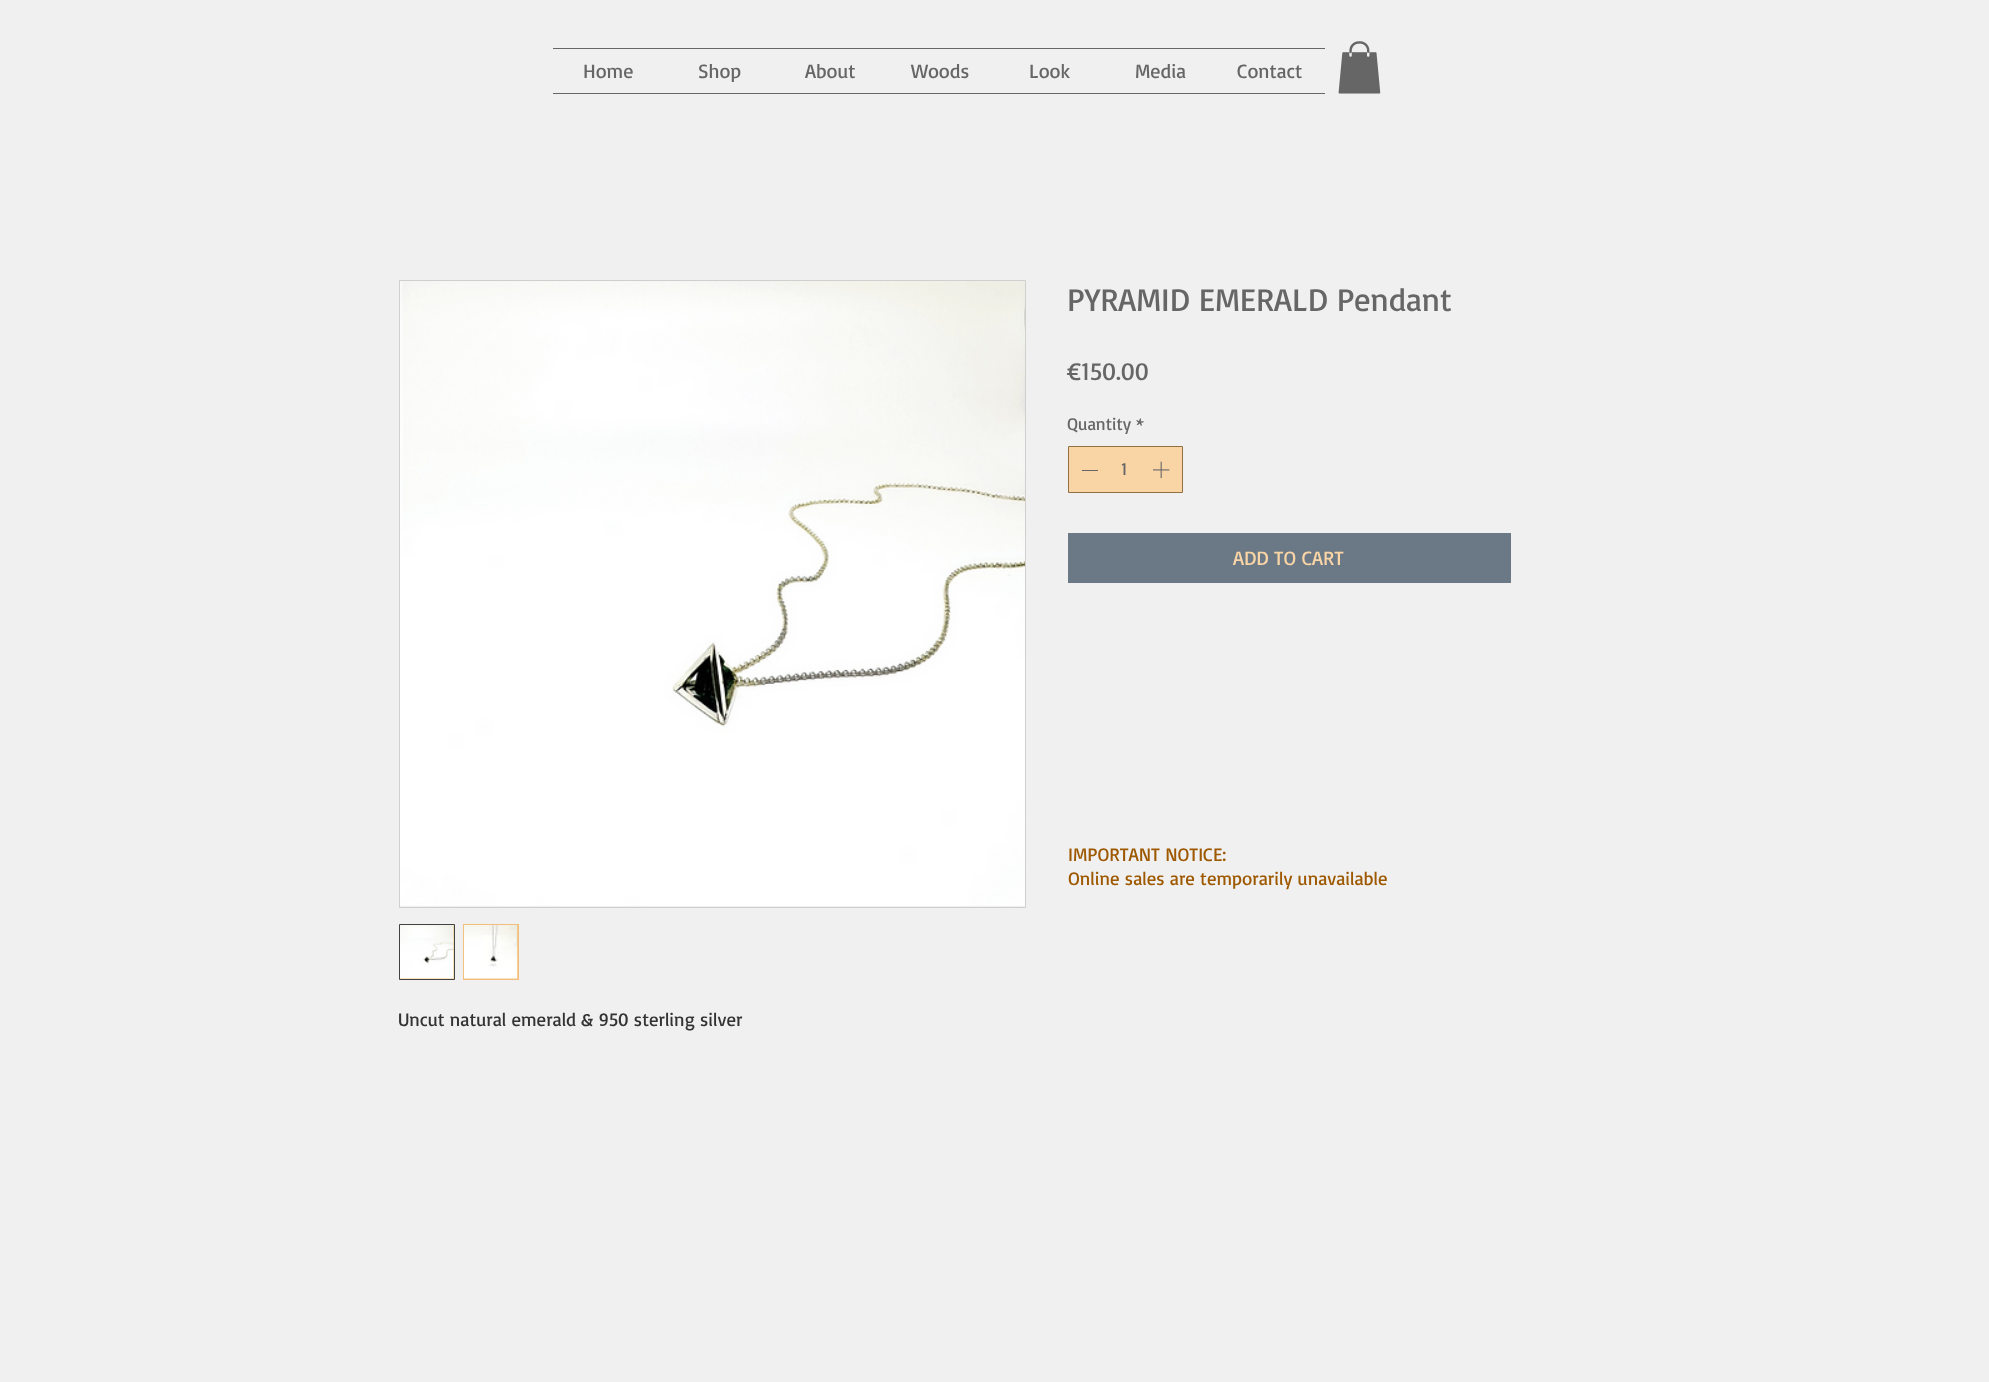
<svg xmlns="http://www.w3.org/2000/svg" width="1989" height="1382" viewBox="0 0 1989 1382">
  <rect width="100%" height="100%" fill="#f0f0f0"/>
  <path d="M553 48h772v1H553z" fill="#666"/>
  <path d="M553 93h772v1H553z" fill="#666"/>
  <image x="1338" y="41" width="43" height="53" href="img/1.png"/>
  <path d="M1068.5 446.5h114v46H1068.5z" fill="#f9d5a6" stroke="#937042"/>
  <path d="M1082 470h16v1H1082z" fill="#666"/>
  <image x="1153" y="461" width="17" height="18" href="img/2.png"/>
  <path d="M1068 533h443v50H1068z" fill="#6b7986"/>
  <path d="M399.5 280.5h626v627H399.5z" fill="none" stroke="#cfcfcf"/>
  <image x="400" y="281" width="625" height="625" href="img/3.png"/>
  <path d="M399.5 924.5h55v55H399.5z" fill="#f3be79" stroke="#424242"/>
  <image x="400" y="925" width="54" height="54" href="img/4.png"/>
  <path d="M463 924h56v56H463z" fill="#f3be79"/>
  <image x="463" y="925" width="55" height="54" href="img/5.png"/>
  <g font-family="Basic" font-size="20" fill="#666">
    <text x="583" y="78">Home</text>
    <text x="698" y="78">Shop</text>
    <text x="805" y="78">About</text>
    <text x="911" y="78">Woods</text>
    <text x="1029" y="78">Look</text>
    <text x="1135" y="78">Media</text>
    <text x="1237" y="78">Contact</text>
  </g>
  <text x="1067" y="311" font-family="Basic" font-size="32.5" fill="#666">PYRAMID EMERALD Pendant</text>
  <text x="1067" y="380" font-family="Basic" font-size="25" fill="#666">€150.00</text>
  <g font-family="Basic" font-size="17.5" fill="#666">
    <text x="1067" y="430">Quantity *</text>
    <text x="1121" y="475">1</text>
  </g>
  <text x="1233" y="565" font-family="Basic" font-size="20" fill="#f9d5a6">ADD TO CART</text>
  <text x="398" y="1026" font-family="Basic" font-size="18.75" fill="#333">Uncut natural emerald &amp; 950 sterling silver</text>
  <g font-family="Basic" font-size="18.75" fill="#9e5900">
    <text x="1068" y="861">IMPORTANT NOTICE:</text>
    <text x="1068" y="885">Online sales are temporarily unavailable</text>
  </g>
</svg>
